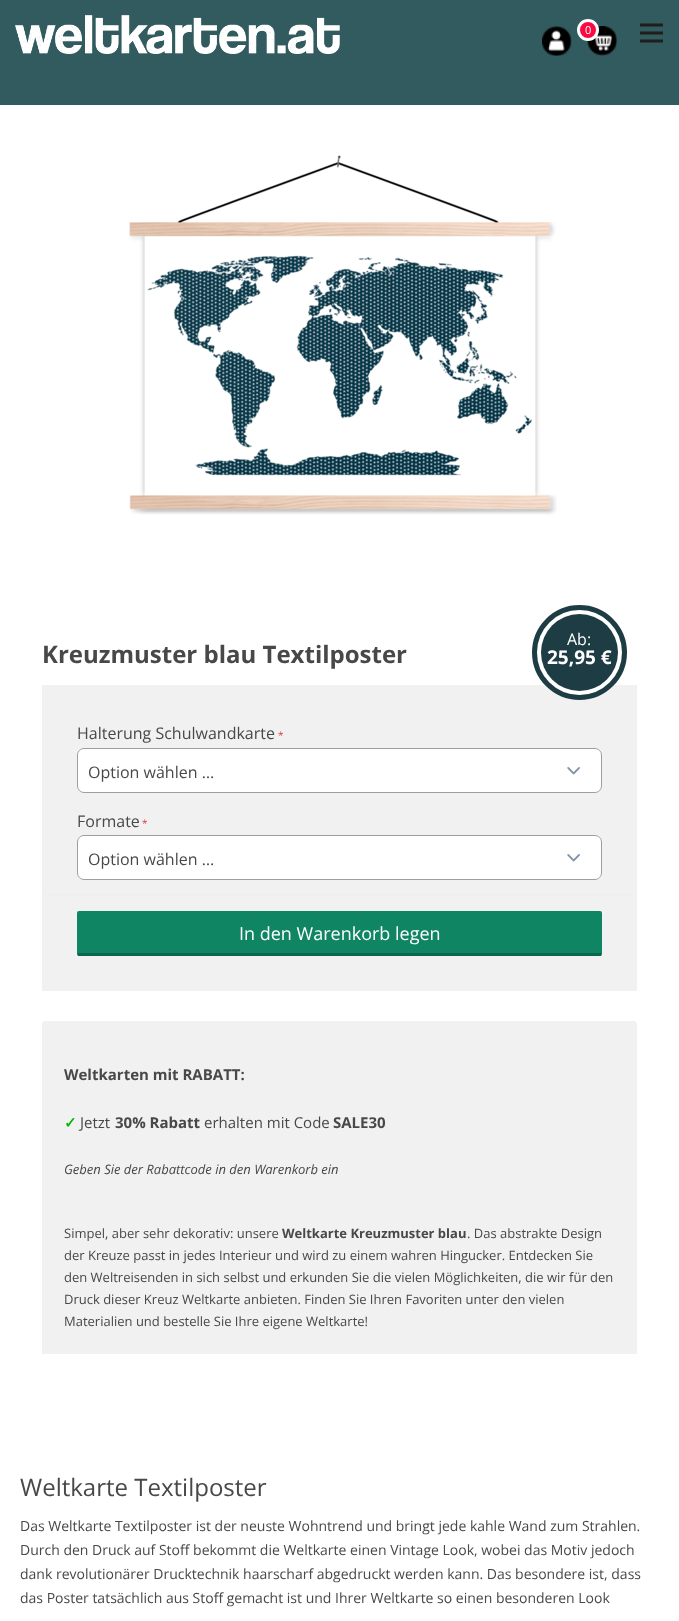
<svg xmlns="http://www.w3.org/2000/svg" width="679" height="1621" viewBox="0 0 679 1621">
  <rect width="100%" height="100%" fill="#fff"/>
  <path d="M0 0h679v105H0z" fill="#325b5f"/>
  <image x="15" y="15" width="325" height="39" href="img/1.png"/>
  <image x="542" y="26" width="30" height="30" href="img/2.png"/>
  <image x="587" y="26" width="30" height="30" href="img/3.png"/>
  <circle cx="588" cy="30" r="9.5" fill="#f80a42" stroke="#fff" stroke-width="3"/>
  <image x="640" y="23" width="23" height="20" href="img/4.png"/>
  <image x="129" y="155" width="428" height="360" href="img/5.png"/>
  <path d="M42 685h595v210H42z" fill="#f1f1f1"/>
  <circle cx="579.5" cy="652.5" r="45" fill="#fff" stroke="#1d3c43" stroke-width="5"/>
  <circle cx="579.5" cy="652.5" r="38.5" fill="#1d3c43"/>
  <path d="M42 895h595v1H42z" fill="#efefef"/>
  <rect x="77" y="748" width="525" height="45" rx="7" fill="#fff"/>
  <image x="567" y="767" width="13" height="8" href="img/6.png"/>
  <rect x="77.5" y="748.5" width="524" height="44" rx="6.5" fill="none" stroke="#9e9e9e"/>
  <rect x="77" y="835" width="525" height="45" rx="7" fill="#fff"/>
  <image x="567" y="854" width="13" height="8" href="img/6.png"/>
  <rect x="77.5" y="835.5" width="524" height="44" rx="6.5" fill="none" stroke="#9e9e9e"/>
  <path d="M42 896h595v95H42z" fill="#f1f1f1"/>
  <rect x="77" y="911" width="525" height="45" rx="2" fill="#0f8564"/>
  <path d="M78 953h523v3H78z" fill="#08674d"/>
  <path d="M45 1021H634C635.5 1021 637 1022.5 637 1024V1356H42V1024C42 1022.5 43.5 1021 45 1021Z" fill="#f1f1f1"/>
  <path d="M42 1354h595v2H42z" fill="#fff"/>
  <text x="585" y="34" font-family="Open Sans" font-size="11" fill="#fff">0</text>
  <text x="567" y="645" font-family="Open Sans" font-size="16" fill="#fff">Ab:</text>
  <text x="547" y="664" font-family="Open Sans" font-size="19" font-weight="bold" fill="#fff">25,95 €</text>
  <text x="77" y="739" font-family="Open Sans" font-size="16" fill="#484848">Halterung Schulwandkarte</text>
  <text x="278" y="739" font-family="Open Sans" font-size="10" fill="#de3737">*</text>
  <g font-family="Open Sans" font-size="16" fill="#484848">
    <text x="88" y="778">Option wählen …</text>
    <text x="77" y="827">Formate</text>
  </g>
  <text x="142" y="827" font-family="Open Sans" font-size="10" fill="#de3737">*</text>
  <text x="88" y="865" font-family="Open Sans" font-size="16" fill="#484848">Option wählen …</text>
  <text x="239" y="940" font-family="Open Sans" font-size="18" fill="#fff">In den Warenkorb legen</text>
  <text x="42" y="663" font-family="Open Sans" font-size="24" font-weight="bold" fill="#484848">Kreuzmuster blau Textilposter</text>
  <text x="64" y="1080" font-family="Open Sans" font-size="15" font-weight="bold" fill="#484848">Weltkarten mit RABATT:</text>
  <text x="64" y="1128" font-family="DejaVu Sans" font-size="15" font-weight="bold" fill="#00b900">✓</text>
  <text x="80" y="1128" font-family="Open Sans" font-size="15" fill="#484848">Jetzt</text>
  <text x="115" y="1128" font-family="Open Sans" font-size="15" font-weight="bold" fill="#484848">30% Rabatt</text>
  <text x="204" y="1128" font-family="Open Sans" font-size="15" fill="#484848">erhalten mit Code</text>
  <text x="333" y="1128" font-family="Open Sans" font-size="15" font-weight="bold" fill="#484848">SALE30</text>
  <text x="64" y="1174" font-family="Open Sans" font-size="13" font-style="italic" fill="#484848">Geben Sie der Rabattcode in den Warenkorb ein</text>
  <text x="64" y="1238" font-family="Open Sans" font-size="13" fill="#484848">Simpel, aber sehr dekorativ: unsere</text>
  <text x="282" y="1238" font-family="Open Sans" font-size="13" font-weight="bold" fill="#484848">Weltkarte Kreuzmuster blau</text>
  <g font-family="Open Sans" font-size="13" fill="#484848">
    <text x="467" y="1238">. Das abstrakte Design</text>
    <text x="64" y="1260">der Kreuze passt in jedes Interieur und wird zu einem wahren Hingucker. Entdecken Sie</text>
    <text x="64" y="1282">den Weltreisenden in sich selbst und erkunden Sie die vielen Möglichkeiten, die wir für den</text>
    <text x="64" y="1304">Druck dieser Kreuz Weltkarte anbieten. Finden Sie Ihren Favoriten unter den vielen</text>
    <text x="64" y="1326">Materialien und bestelle Sie Ihre eigene Weltkarte!</text>
  </g>
  <text x="20" y="1496" font-family="Open Sans" font-size="24" fill="#484848">Weltkarte Textilposter</text>
  <g font-family="Open Sans" font-size="14" fill="#484848">
    <text x="20" y="1531">Das Weltkarte Textilposter ist der neuste Wohntrend und bringt jede kahle Wand zum Strahlen.</text>
    <text x="20" y="1555">Durch den Druck auf Stoff bekommt die Weltkarte einen Vintage Look, wobei das Motiv jedoch</text>
    <text x="20" y="1579">dank revolutionärer Drucktechnik haarscharf abgedruckt werden kann. Das besondere ist, dass</text>
    <text x="20" y="1603">das Poster tatsächlich aus Stoff gemacht ist und Ihrer Weltkarte so einen besonderen Look</text>
  </g>
</svg>
